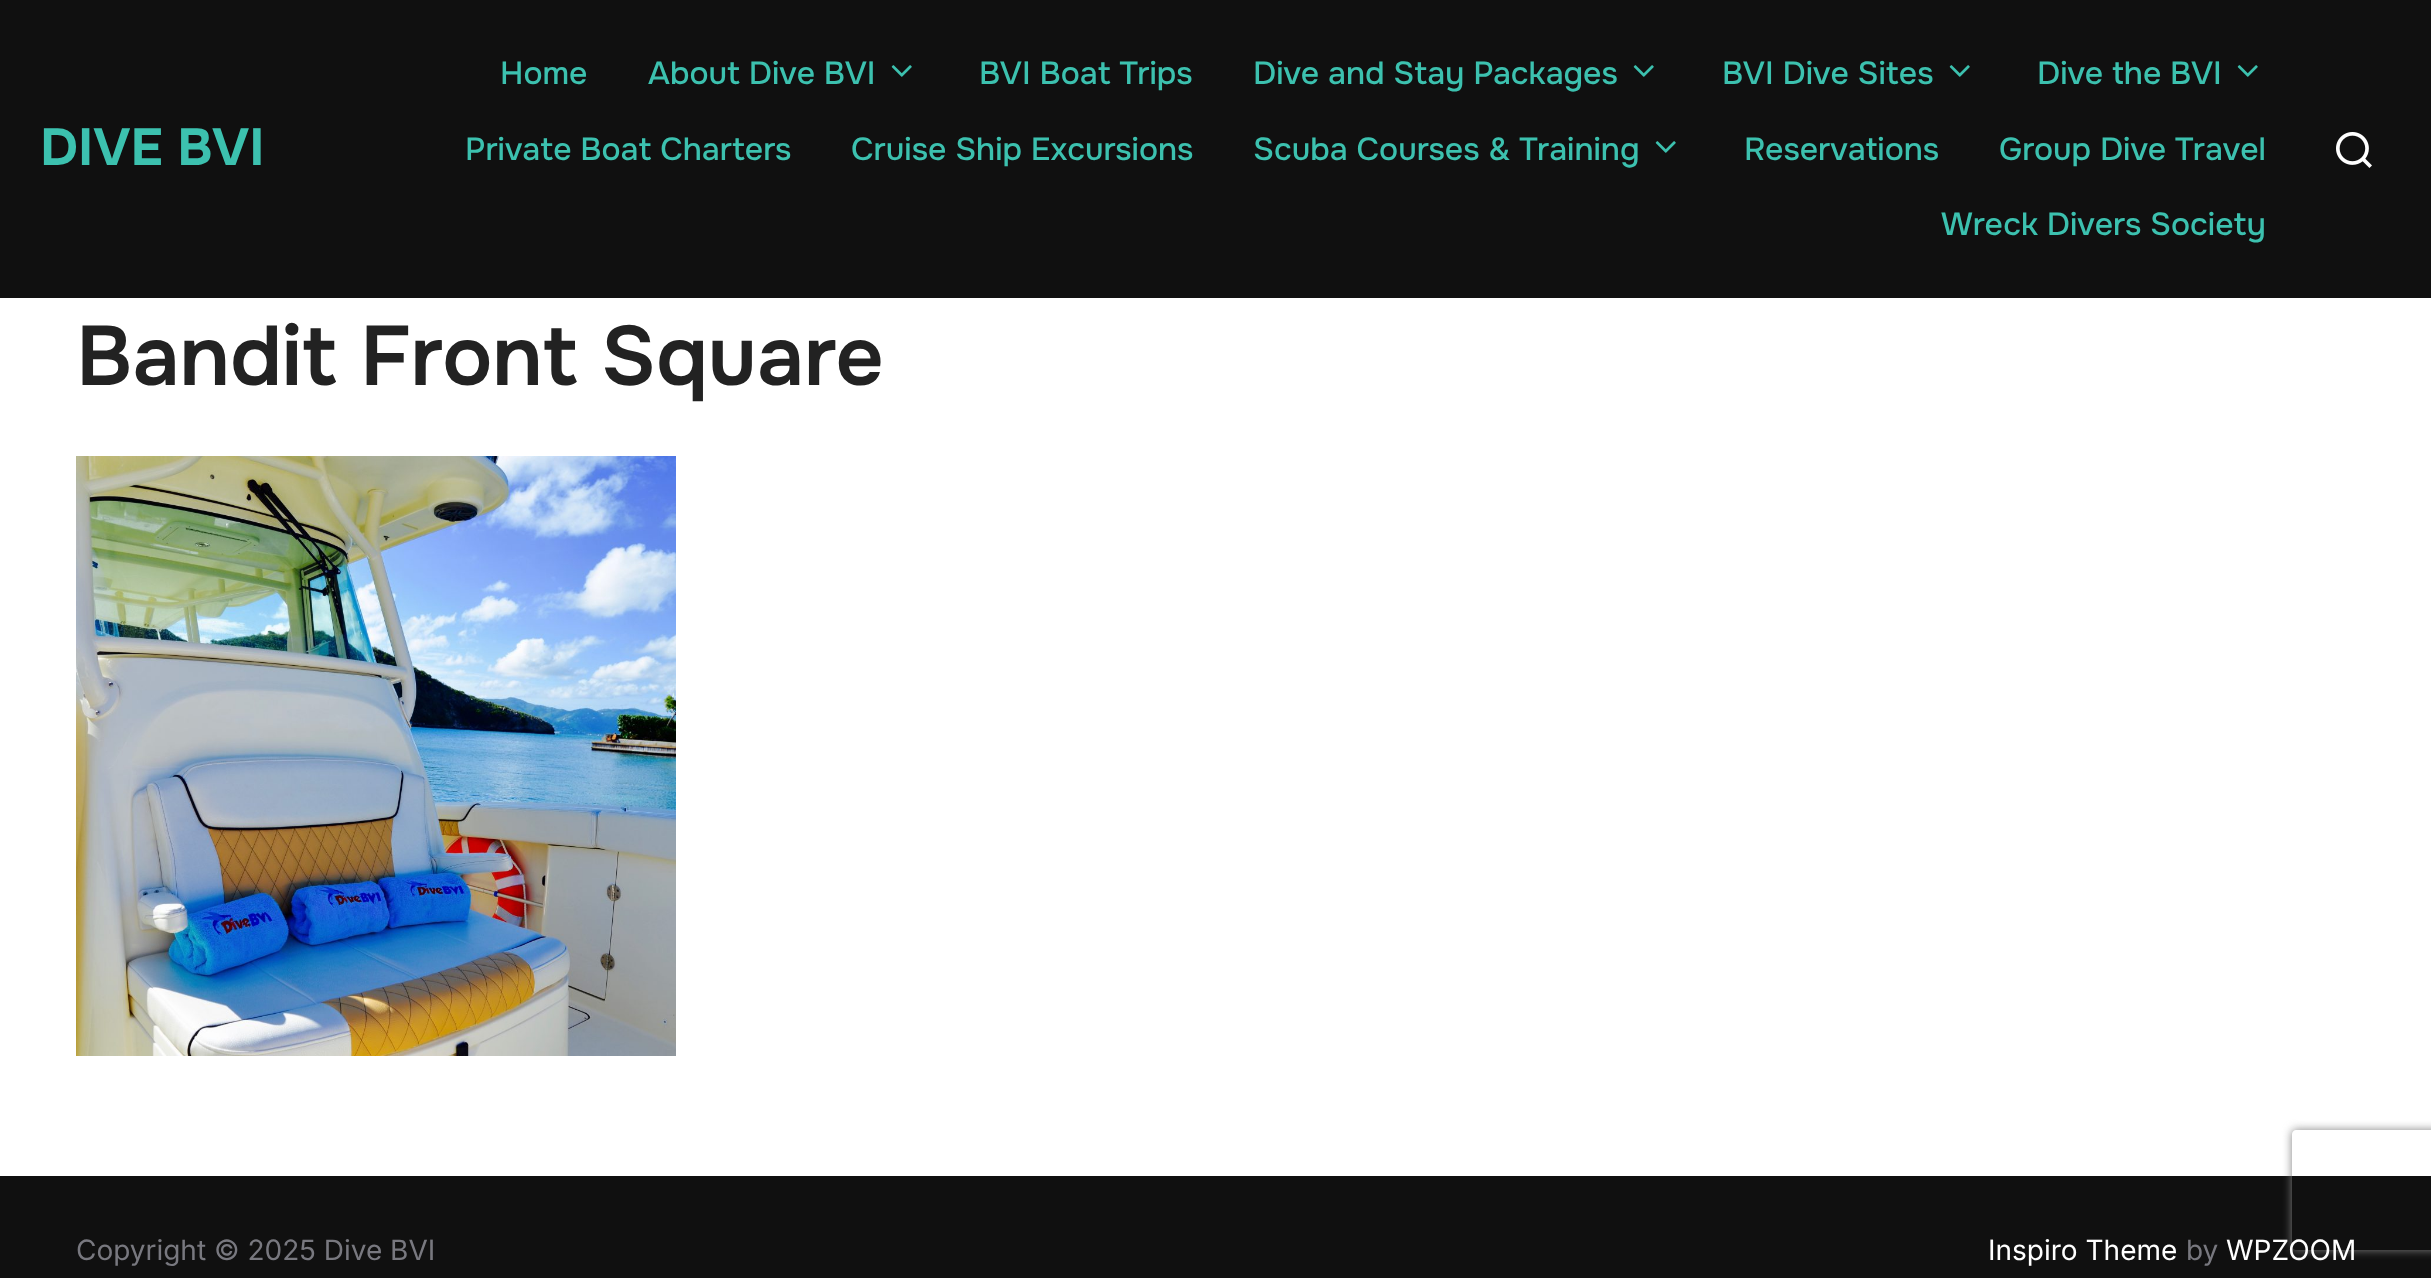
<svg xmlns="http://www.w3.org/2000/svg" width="2431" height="1278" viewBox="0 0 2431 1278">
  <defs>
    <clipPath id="clip1"><path d="M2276 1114H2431V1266H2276ZM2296 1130H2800C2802 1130 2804 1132 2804 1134V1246C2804 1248 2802 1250 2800 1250H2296C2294 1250 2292 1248 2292 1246V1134C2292 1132 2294 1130 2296 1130Z" clip-rule="evenodd"/></clipPath>
  </defs>
  <rect width="100%" height="100%" fill="#fff"/>
  <path d="M0 0h2431v298H0z" fill="#101010"/>
  <image x="891" y="65" width="21" height="12" href="img/1.png"/>
  <image x="1633" y="65" width="21" height="12" href="img/1.png"/>
  <image x="1949" y="65" width="21" height="12" href="img/1.png"/>
  <image x="2237" y="65" width="21" height="12" href="img/1.png"/>
  <image x="1655" y="141" width="21" height="12" href="img/1.png"/>
  <image x="2336" y="132" width="36" height="36" href="img/2.png"/>
  <image x="76" y="456" width="600" height="600" href="img/3.png"/>
  <path d="M0 1176h2431v102H0z" fill="#101010"/>
  <g clip-path="url(#clip1)">
    <rect x="2292" y="1130" width="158" height="120" rx="4" fill="#808080" filter="blur(5px)"/>
  </g>
  <text x="40" y="165" font-family="Onest" font-size="52" font-weight="bold" fill="#3cc1af">DIVE BVI</text>
  <g font-family="Onest" font-size="32" font-weight="500" fill="#3cc1af">
    <text x="500" y="84">Home</text>
    <text x="648" y="84">About Dive BVI</text>
    <text x="979" y="84">BVI Boat Trips</text>
    <text x="1253" y="84">Dive and Stay Packages</text>
    <text x="1722" y="84">BVI Dive Sites</text>
    <text x="2037" y="84">Dive the BVI</text>
    <text x="465" y="160">Private Boat Charters</text>
    <text x="851" y="160">Cruise Ship Excursions</text>
    <text x="1253" y="160">Scuba Courses &amp; Training</text>
    <text x="1744" y="160">Reservations</text>
    <text x="1999" y="160">Group Dive Travel</text>
    <text x="1941" y="235">Wreck Divers Society</text>
  </g>
  <text x="76" y="385" font-family="Onest" font-size="84" font-weight="600" fill="#222">Bandit Front Square</text>
  <text x="76" y="1260" font-family="Inter" font-size="28" fill="#78787f">Copyright © 2025 Dive BVI</text>
  <text x="1988" y="1260" font-family="Inter" font-size="28" fill="#fff">Inspiro Theme</text>
  <text x="2186" y="1260" font-family="Inter" font-size="28" fill="#78787f">by</text>
  <text x="2226" y="1260" font-family="Inter" font-size="28" fill="#fff">WPZOOM</text>
</svg>
